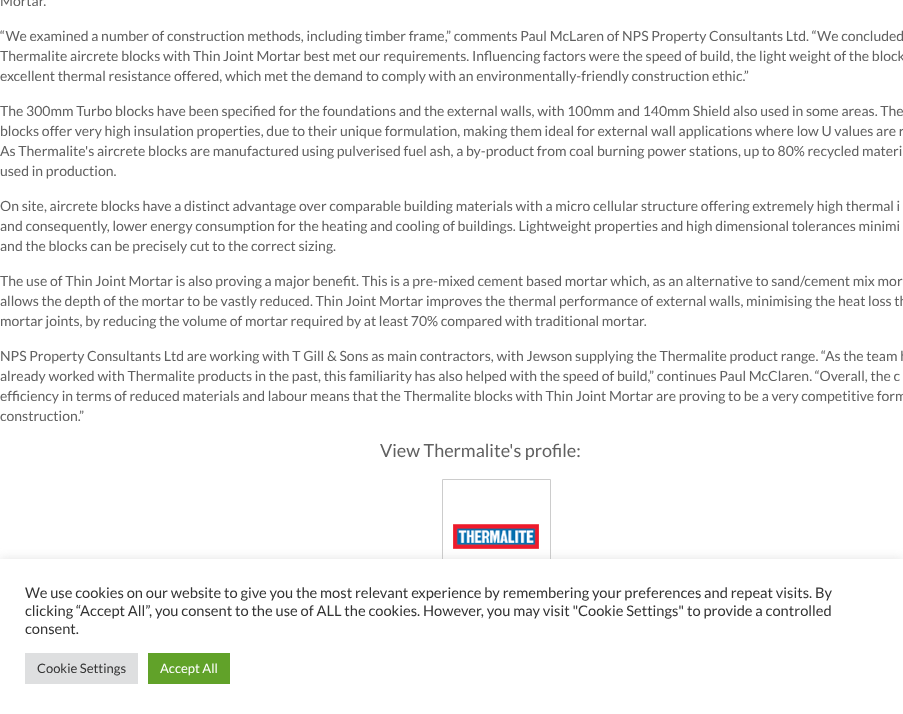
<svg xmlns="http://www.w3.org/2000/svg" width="903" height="714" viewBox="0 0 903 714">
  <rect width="100%" height="100%" fill="#fff"/>
  <path d="M442.5 479.5h108v111H442.5z" fill="none" stroke="#ccc"/>
  <image x="453" y="524" width="86" height="25" href="img/1.png"/>
  <path d="M0 558h903v155H0z" fill="#acabab4d" filter="blur(5px)"/>
  <path d="M0 559h903v155H0z" fill="#fff"/>
  <path d="M25 653h113v31H25z" fill="#dedfe0"/>
  <path d="M148 653h82v31H148z" fill="#61a229"/>
  <g font-family="Lato" font-size="14" fill="#606060">
    <text x="0" y="6">Mortar.</text>
    <text x="0" y="41">“We examined a number of construction methods, including timber frame,” comments Paul McLaren of NPS Property Consultants Ltd. “We concluded</text>
    <text x="0" y="61">Thermalite aircrete blocks with Thin Joint Mortar best met our requirements. Influencing factors were the speed of build, the light weight of the block</text>
    <text x="0" y="81">excellent thermal resistance offered, which met the demand to comply with an environmentally-friendly construction ethic.”</text>
    <text x="0" y="116">The 300mm Turbo blocks have been specified for the foundations and the external walls, with 100mm and 140mm Shield also used in some areas. The</text>
    <text x="0" y="136">blocks offer very high insulation properties, due to their unique formulation, making them ideal for external wall applications where low U values are r</text>
    <text x="0" y="156">As Thermalite's aircrete blocks are manufactured using pulverised fuel ash, a by-product from coal burning power stations, up to 80% recycled materi</text>
    <text x="0" y="176">used in production.</text>
    <text x="0" y="211">On site, aircrete blocks have a distinct advantage over comparable building materials with a micro cellular structure offering extremely high thermal i</text>
    <text x="0" y="231">and consequently, lower energy consumption for the heating and cooling of buildings. Lightweight properties and high dimensional tolerances minimi</text>
    <text x="0" y="251">and the blocks can be precisely cut to the correct sizing.</text>
    <text x="0" y="286">The use of Thin Joint Mortar is also proving a major benefit. This is a pre-mixed cement based mortar which, as an alternative to sand/cement mix mor</text>
    <text x="0" y="306">allows the depth of the mortar to be vastly reduced. Thin Joint Mortar improves the thermal performance of external walls, minimising the heat loss th</text>
    <text x="0" y="326">mortar joints, by reducing the volume of mortar required by at least 70% compared with traditional mortar.</text>
    <text x="0" y="361">NPS Property Consultants Ltd are working with T Gill &amp; Sons as main contractors, with Jewson supplying the Thermalite product range. “As the team h</text>
    <text x="0" y="381">already worked with Thermalite products in the past, this familiarity has also helped with the speed of build,” continues Paul McClaren. “Overall, the c</text>
    <text x="0" y="401">efficiency in terms of reduced materials and labour means that the Thermalite blocks with Thin Joint Mortar are proving to be a very competitive form</text>
    <text x="0" y="421">construction.”</text>
  </g>
  <text x="380" y="457" font-family="Lato" font-size="18" fill="#606060">View Thermalite's profile:</text>
  <g font-family="Lato" font-size="14.67" fill="#333">
    <text x="25" y="598">We use cookies on our website to give you the most relevant experience by remembering your preferences and repeat visits. By</text>
    <text x="25" y="616">clicking “Accept All”, you consent to the use of ALL the cookies. However, you may visit "Cookie Settings" to provide a controlled</text>
    <text x="25" y="634">consent.</text>
  </g>
  <text x="37" y="673" font-family="Lato" font-size="13" fill="#333">Cookie Settings</text>
  <text x="160" y="673" font-family="Lato" font-size="13" fill="#fff">Accept All</text>
</svg>
